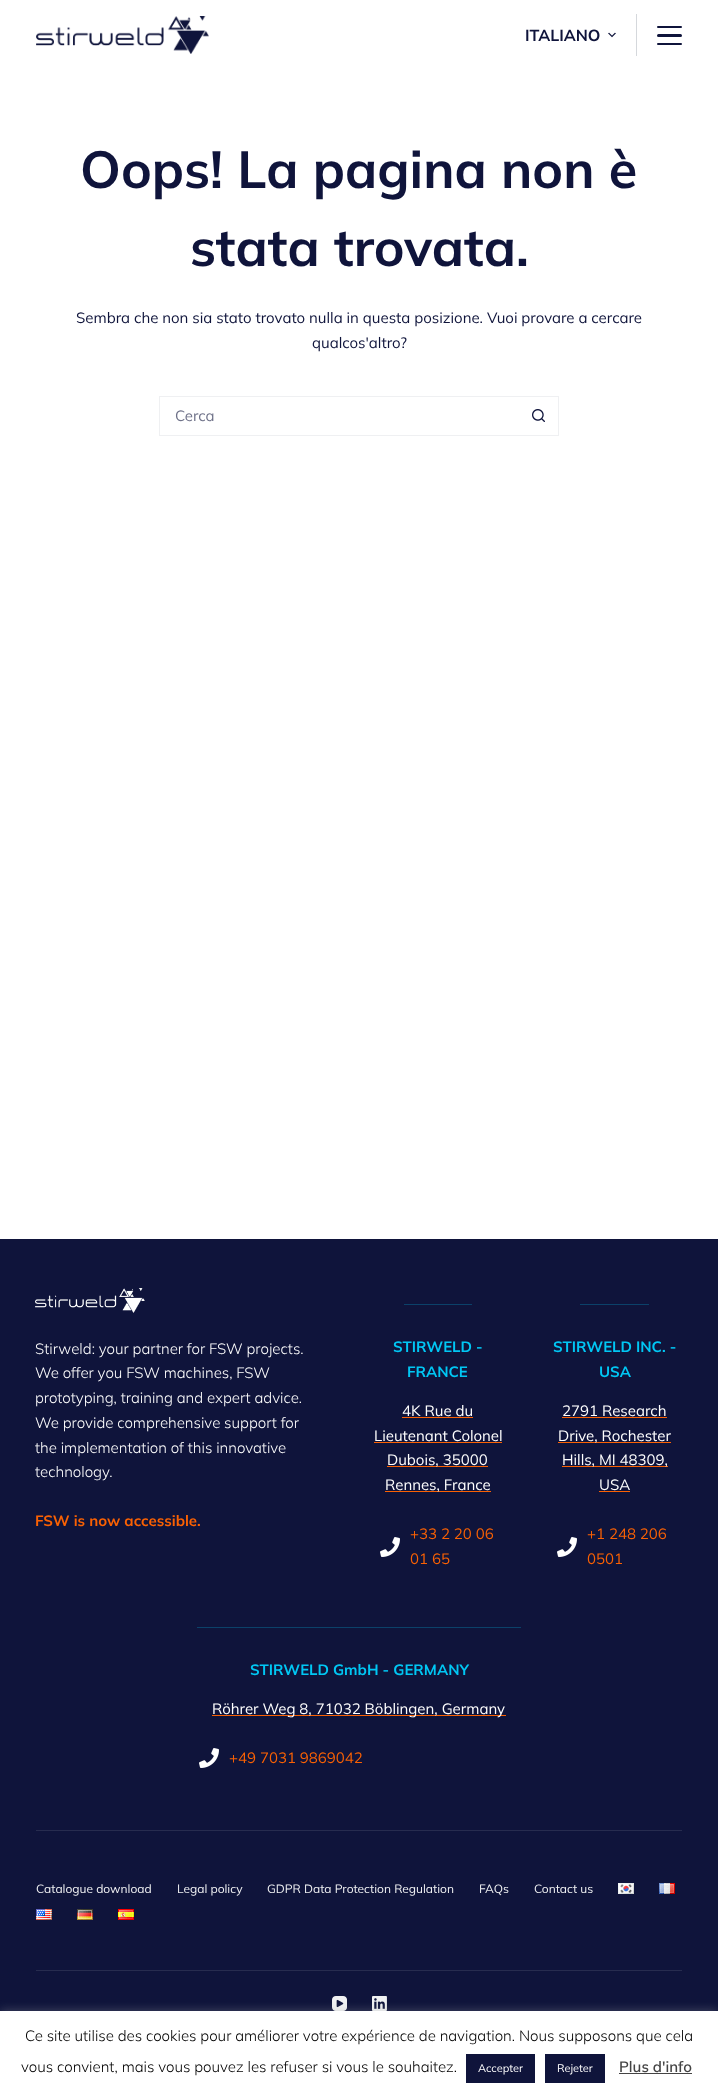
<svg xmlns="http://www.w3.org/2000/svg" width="718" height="2100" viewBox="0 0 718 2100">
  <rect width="100%" height="100%" fill="#fff"/>
  <image x="36" y="16" width="173" height="38" href="img/1.png"/>
  <image x="608" y="32" width="8" height="6" href="img/2.png"/>
  <path d="M636 14h1v42H636z" fill="#d5d8dc"/>
  <rect x="657" y="26" width="25" height="2" rx="1" fill="#0f143b"/>
  <rect x="657" y="34" width="25" height="3" rx="1.5" fill="#0f143b"/>
  <rect x="657" y="43" width="25" height="2" rx="1" fill="#0f143b"/>
  <path d="M159 396h400v1H159z" fill="#eff0f2"/>
  <path d="M159 435h360v1H159z" fill="#eff0f2"/>
  <path d="M159 396h1v40H159z" fill="#eff0f2"/>
  <path d="M558 396h1v40H558z" fill="#eff0f2"/>
  <path d="M519 435h40v1H519z" fill="#eff0f2"/>
  <image x="532" y="409" width="13" height="13" href="img/3.png"/>
  <path d="M0 1239h718v772H0z" fill="#0f143b"/>
  <image x="35" y="1288" width="110" height="25" href="img/4.png"/>
  <path d="M404 1304h68v1H404z" fill="#0b4169"/>
  <path d="M402 1417h71v1H402z" fill="#fa6103"/>
  <path d="M374 1442h128v1H374z" fill="#fa6103"/>
  <path d="M387 1466h101v1H387z" fill="#fa6103"/>
  <path d="M385 1491h106v1H385z" fill="#fa6103"/>
  <image x="380" y="1537" width="20" height="20" href="img/5.png"/>
  <path d="M580 1304h69v1H580z" fill="#0b4169"/>
  <path d="M562 1417h105v1H562z" fill="#fa6103"/>
  <path d="M558 1442h113v1H558z" fill="#fa6103"/>
  <path d="M562 1466h106v1H562z" fill="#fa6103"/>
  <path d="M599 1491h31v1H599z" fill="#fa6103"/>
  <image x="557" y="1537" width="20" height="20" href="img/5.png"/>
  <path d="M197 1627h324v1H197z" fill="#0b4169"/>
  <path d="M212 1715h294v1H212z" fill="#fa6103"/>
  <image x="199" y="1748" width="20" height="20" href="img/5.png"/>
  <path d="M36 1830h646v1H36z" fill="#272c4f"/>
  <image x="618" y="1883" width="16" height="11" href="img/6.png"/>
  <image x="659" y="1883" width="16" height="11" href="img/7.png"/>
  <image x="36" y="1909" width="16" height="11" href="img/8.png"/>
  <image x="77" y="1909" width="16" height="11" href="img/9.png"/>
  <image x="118" y="1909" width="16" height="11" href="img/10.png"/>
  <path d="M36 1970h646v1H36z" fill="#272c4f"/>
  <image x="332" y="1996" width="15" height="15" href="img/11.png"/>
  <image x="372" y="1996" width="15" height="15" href="img/12.png"/>
  <path d="M0 2010h718v89H0z" fill="#acabab4d" filter="blur(5px)"/>
  <path d="M0 2011h718v89H0z" fill="#fff"/>
  <path d="M466 2054h69v29H466z" fill="#0f143b"/>
  <path d="M545 2054h60v29H545z" fill="#0f143b"/>
  <path d="M619 2073h73v1H619z" fill="#444"/>
  <text x="525" y="41" font-family="Mulish" font-size="16" font-weight="bold" fill="#0f143b">ITALIANO</text>
  <g font-family="Mulish" font-size="52" font-weight="bold" fill="#0f143b">
    <text x="80" y="188">Oops! La pagina non è</text>
    <text x="190" y="266">stata trovata.</text>
  </g>
  <g font-family="Mulish" font-size="15" fill="#0f143b">
    <text x="76" y="323">Sembra che non sia stato trovato nulla in questa posizione. Vuoi provare a cercare</text>
    <text x="312" y="348">qualcos'altro?</text>
  </g>
  <text x="175" y="421" font-family="Mulish" font-size="15" fill="#6f7289">Cerca</text>
  <g font-family="Mulish" font-size="15" font-weight="300" fill="#fff">
    <text x="35" y="1354">Stirweld: your partner for FSW projects.</text>
    <text x="35" y="1378">We offer you FSW machines, FSW</text>
    <text x="35" y="1403">prototyping, training and expert advice.</text>
    <text x="35" y="1428">We provide comprehensive support for</text>
    <text x="35" y="1453">the implementation of this innovative</text>
    <text x="35" y="1477">technology.</text>
  </g>
  <text x="35" y="1526" font-family="Mulish" font-size="15" font-weight="bold" fill="#fa6103">FSW is now accessible.</text>
  <g font-family="Mulish" font-size="15" font-weight="bold" fill="#00c7f4">
    <text x="393" y="1352">STIRWELD -</text>
    <text x="407" y="1377">FRANCE</text>
  </g>
  <g font-family="Mulish" font-size="15" fill="#fff">
    <text x="402" y="1416">4K Rue du</text>
    <text x="374" y="1441">Lieutenant Colonel</text>
    <text x="387" y="1465">Dubois, 35000</text>
    <text x="385" y="1490">Rennes, France</text>
  </g>
  <g font-family="Mulish" font-size="15" fill="#fa6103">
    <text x="410" y="1539">+33 2 20 06</text>
    <text x="410" y="1564">01 65</text>
  </g>
  <g font-family="Mulish" font-size="15" font-weight="bold" fill="#00c7f4">
    <text x="553" y="1352">STIRWELD INC. -</text>
    <text x="599" y="1377">USA</text>
  </g>
  <g font-family="Mulish" font-size="15" fill="#fff">
    <text x="562" y="1416">2791 Research</text>
    <text x="558" y="1441">Drive, Rochester</text>
    <text x="562" y="1465">Hills, MI 48309,</text>
    <text x="599" y="1490">USA</text>
  </g>
  <g font-family="Mulish" font-size="15" fill="#fa6103">
    <text x="587" y="1539">+1 248 206</text>
    <text x="587" y="1564">0501</text>
  </g>
  <text x="250" y="1675" font-family="Mulish" font-size="15" font-weight="bold" fill="#00c7f4">STIRWELD GmbH - GERMANY</text>
  <text x="212" y="1714" font-family="Mulish" font-size="15" fill="#fff">Röhrer Weg 8, 71032 Böblingen, Germany</text>
  <text x="229" y="1763" font-family="Mulish" font-size="15" fill="#fa6103">+49 7031 9869042</text>
  <g font-family="Mulish" font-size="12" fill="#eff0f2">
    <text x="36" y="1893">Catalogue download</text>
    <text x="177" y="1893">Legal policy</text>
    <text x="267" y="1893">GDPR Data Protection Regulation</text>
    <text x="479" y="1893">FAQs</text>
    <text x="534" y="1893">Contact us</text>
  </g>
  <g font-family="Mulish" font-size="15" font-weight="300" fill="#000">
    <text x="25" y="2041">Ce site utilise des cookies pour améliorer votre expérience de navigation. Nous supposons que cela</text>
    <text x="21" y="2072">vous convient, mais vous pouvez les refuser si vous le souhaitez.</text>
  </g>
  <g font-family="Mulish" font-size="11" fill="#fff">
    <text x="478" y="2072">Accepter</text>
    <text x="557" y="2072">Rejeter</text>
  </g>
  <text x="619" y="2072" font-family="Mulish" font-size="15" font-weight="600" fill="#444">Plus d'info</text>
</svg>
